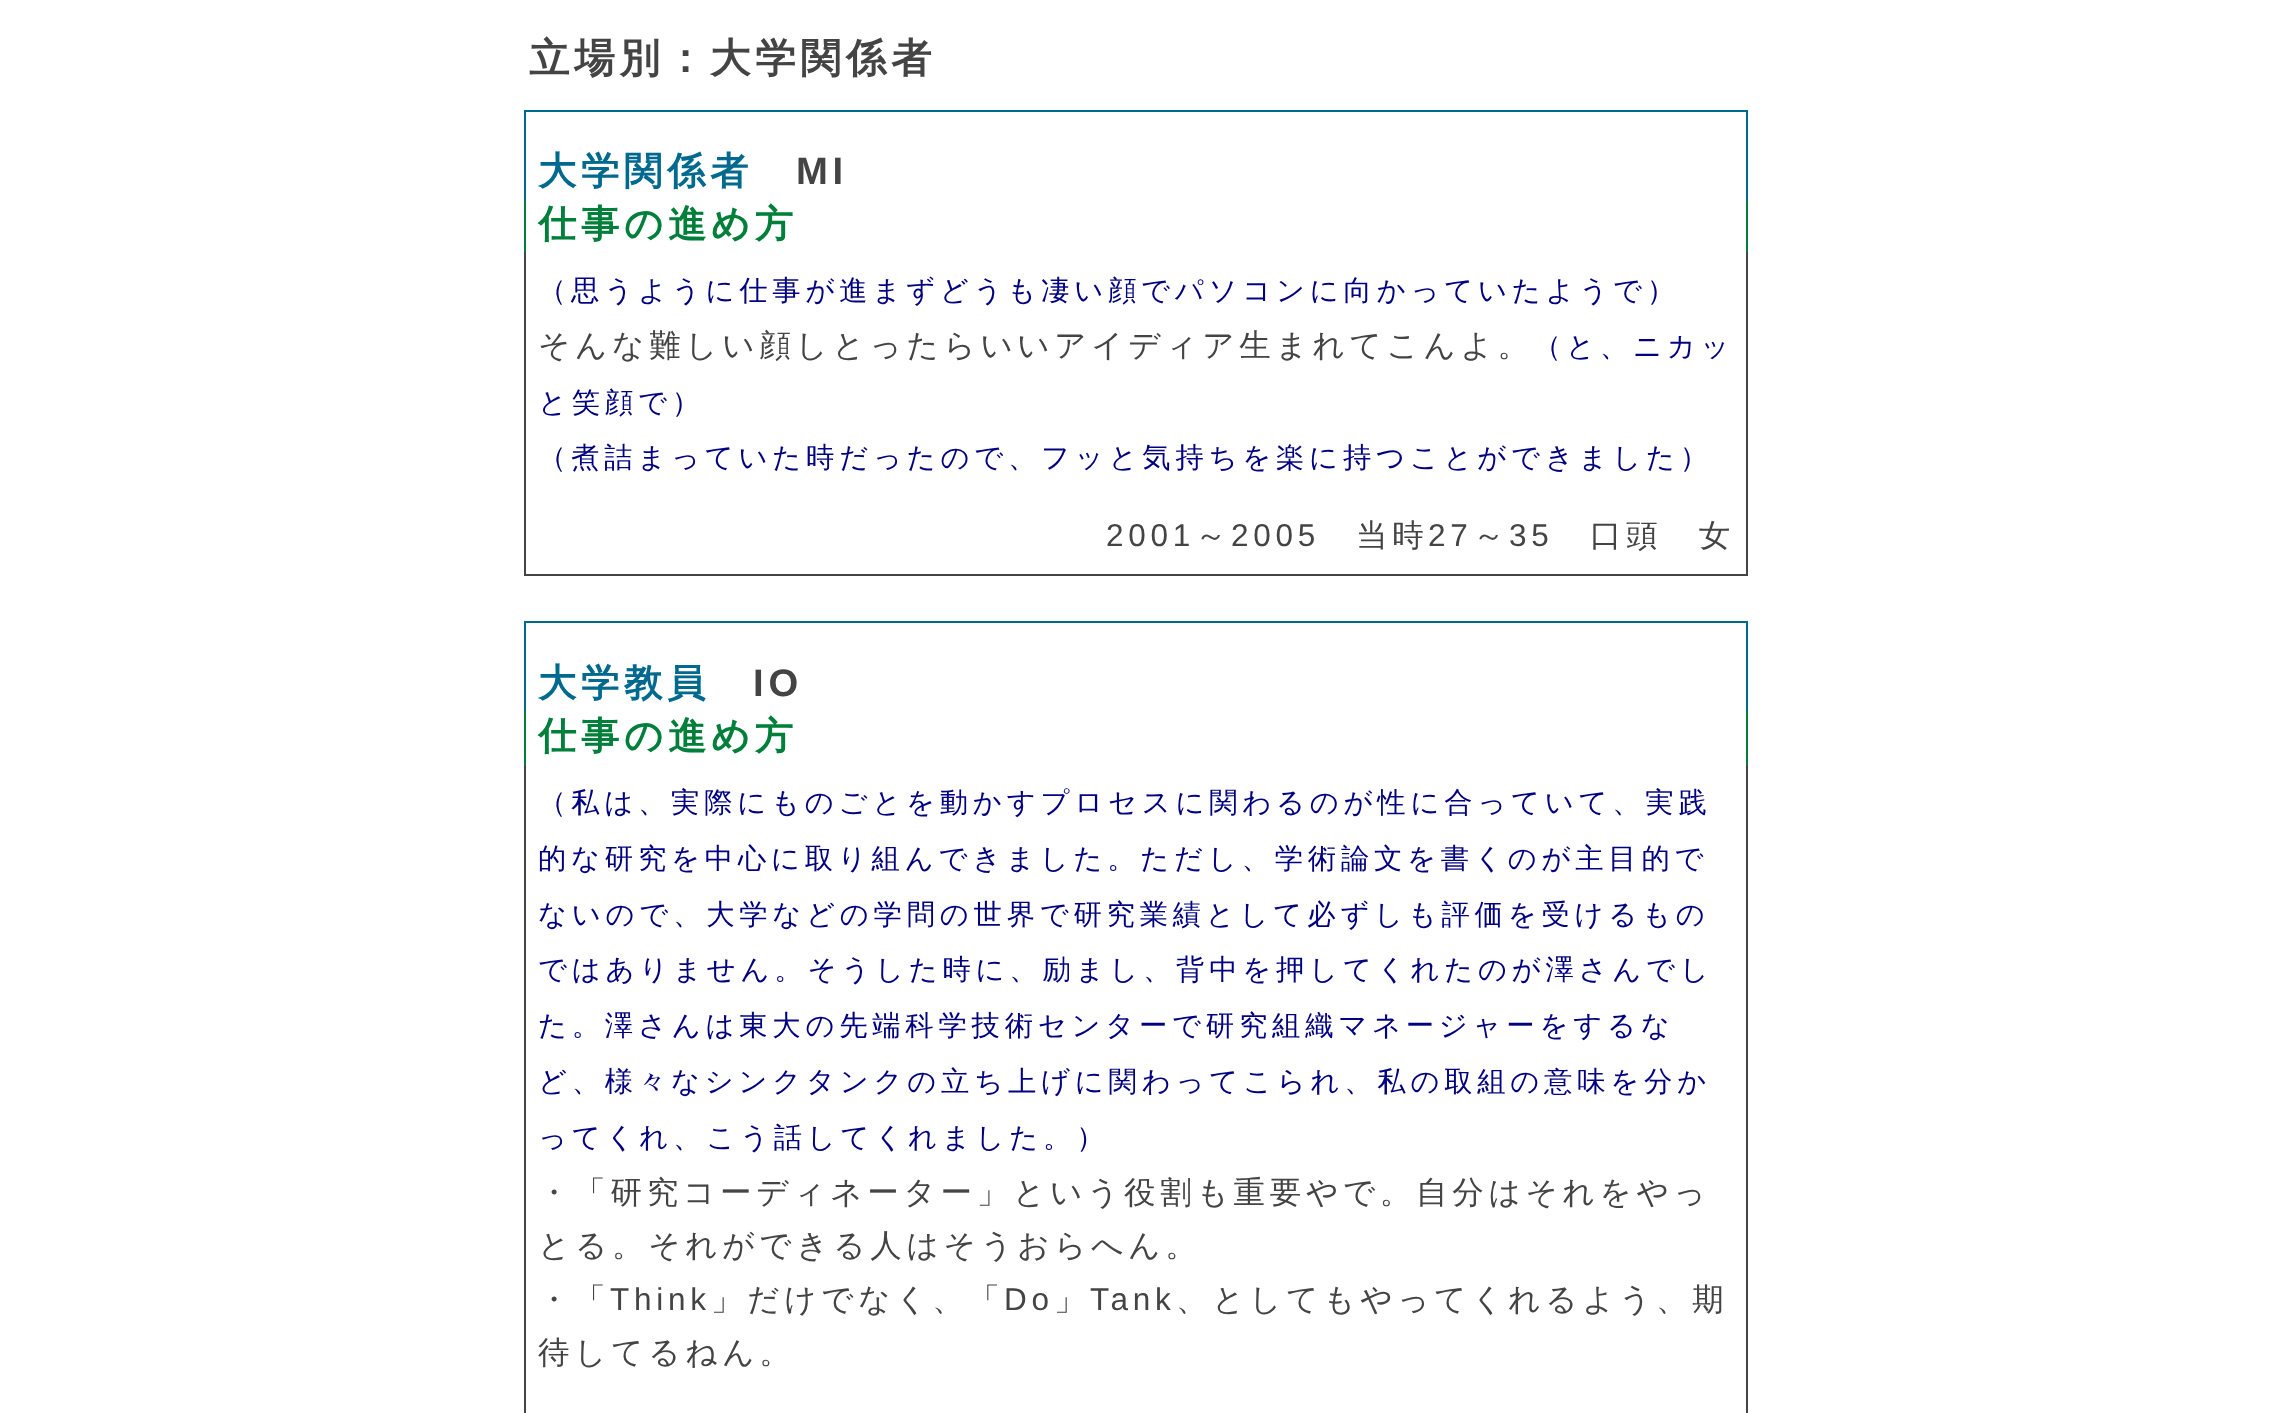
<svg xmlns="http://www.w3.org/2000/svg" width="2272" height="1413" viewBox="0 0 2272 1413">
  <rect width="100%" height="100%" fill="#fff"/>
  <path d="M524 110h1224v2H524z" fill="#00698e"/>
  <path d="M1746 110h2v90H1746z" fill="#00698e"/>
  <path d="M524 110h2v90H524z" fill="#00698e"/>
  <path d="M1746 200h2v52H1746z" fill="#007f3a"/>
  <path d="M524 200h2v52H524z" fill="#007f3a"/>
  <path d="M1746 252h2v324H1746z" fill="#444"/>
  <path d="M524 252h2v248H524z" fill="#444"/>
  <path d="M524 574h1224v2H524z" fill="#444"/>
  <path d="M524 500h2v76H524z" fill="#444"/>
  <path d="M524 621h1224v2H524z" fill="#00698e"/>
  <path d="M1746 621h2v90H1746z" fill="#00698e"/>
  <path d="M524 621h2v90H524z" fill="#00698e"/>
  <path d="M1746 711h2v54H1746z" fill="#007f3a"/>
  <path d="M524 711h2v54H524z" fill="#007f3a"/>
  <path d="M1746 765h2v648H1746z" fill="#444"/>
  <path d="M524 765h2v648H524z" fill="#444"/>
  <text x="529" y="72" font-family="WenQuanYi Zen Hei" font-size="40.5" font-weight="bold" letter-spacing="4.75" fill="#444">立場別：大学関係者</text>
  <text x="538" y="184" font-family="WenQuanYi Zen Hei" font-size="38.25" font-weight="bold" letter-spacing="4.75" fill="#00698e">大学関係者</text>
  <text x="796" y="184" font-family="Liberation Sans" font-size="38.25" font-weight="bold" letter-spacing="4.75" fill="#444">MI</text>
  <text x="538" y="237" font-family="WenQuanYi Zen Hei" font-size="38.25" font-weight="bold" letter-spacing="4.75" fill="#007f3a">仕事の進め方</text>
  <text x="538" y="300" font-family="WenQuanYi Zen Hei" font-size="28.35" font-weight="500" letter-spacing="4.75" fill="#000080">（思うように仕事が進まずどうも凄い顔でパソコンに向かっていたようで）</text>
  <text x="538" y="356" font-family="WenQuanYi Zen Hei" font-size="31.5" font-weight="500" letter-spacing="4.75" fill="#444">そんな難しい顔しとったらいいアイディア生まれてこんよ。</text>
  <g font-family="WenQuanYi Zen Hei" font-size="28.35" font-weight="500" letter-spacing="4.75" fill="#000080">
    <text x="1533" y="356">（と、ニカッ</text>
    <text x="538" y="412">と笑顔で）</text>
    <text x="538" y="467">（煮詰まっていた時だったので、フッと気持ちを楽に持つことができました）</text>
  </g>
  <text x="1106" y="546" font-family="Liberation Sans" font-size="31.5" letter-spacing="4.75" fill="#444">2001</text>
  <text x="1195" y="546" font-family="WenQuanYi Zen Hei" font-size="31.5" font-weight="500" letter-spacing="4.75" fill="#444">～</text>
  <text x="1231" y="546" font-family="Liberation Sans" font-size="31.5" letter-spacing="4.75" fill="#444">2005</text>
  <text x="1356" y="546" font-family="WenQuanYi Zen Hei" font-size="31.5" font-weight="500" letter-spacing="4.75" fill="#444">当時</text>
  <text x="1428" y="546" font-family="Liberation Sans" font-size="31.5" letter-spacing="4.75" fill="#444">27</text>
  <text x="1473" y="546" font-family="WenQuanYi Zen Hei" font-size="31.5" font-weight="500" letter-spacing="4.75" fill="#444">～</text>
  <text x="1509" y="546" font-family="Liberation Sans" font-size="31.5" letter-spacing="4.75" fill="#444">35</text>
  <text x="1590" y="546" font-family="WenQuanYi Zen Hei" font-size="31.5" font-weight="500" letter-spacing="4.75" fill="#444">口頭　女</text>
  <text x="538" y="696" font-family="WenQuanYi Zen Hei" font-size="38.25" font-weight="bold" letter-spacing="4.75" fill="#00698e">大学教員</text>
  <text x="753" y="696" font-family="Liberation Sans" font-size="38.25" font-weight="bold" letter-spacing="4.75" fill="#444">IO</text>
  <text x="538" y="749" font-family="WenQuanYi Zen Hei" font-size="38.25" font-weight="bold" letter-spacing="4.75" fill="#007f3a">仕事の進め方</text>
  <g font-family="WenQuanYi Zen Hei" font-size="28.35" font-weight="500" letter-spacing="4.75" fill="#000080">
    <text x="538" y="812">（私は、実際にものごとを動かすプロセスに関わるのが性に合っていて、実践</text>
    <text x="538" y="868">的な研究を中心に取り組んできました。ただし、学術論文を書くのが主目的で</text>
    <text x="538" y="924">ないので、大学などの学問の世界で研究業績として必ずしも評価を受けるもの</text>
    <text x="538" y="979">ではありません。そうした時に、励まし、背中を押してくれたのが澤さんでし</text>
    <text x="538" y="1035">た。澤さんは東大の先端科学技術センターで研究組織マネージャーをするな</text>
    <text x="538" y="1091">ど、様々なシンクタンクの立ち上げに関わってこられ、私の取組の意味を分か</text>
    <text x="538" y="1147">ってくれ、こう話してくれました。）</text>
  </g>
  <g font-family="WenQuanYi Zen Hei" font-size="31.5" font-weight="500" letter-spacing="4.75" fill="#444">
    <text x="538" y="1203">・「研究コーディネーター」という役割も重要やで。自分はそれをやっ</text>
    <text x="538" y="1256">とる。それができる人はそうおらへん。</text>
    <text x="538" y="1310">・「</text>
  </g>
  <text x="610" y="1310" font-family="Liberation Sans" font-size="31.5" letter-spacing="4.75" fill="#444">Think</text>
  <text x="711" y="1310" font-family="WenQuanYi Zen Hei" font-size="31.5" font-weight="500" letter-spacing="4.75" fill="#444">」だけでなく、「</text>
  <text x="1004" y="1310" font-family="Liberation Sans" font-size="31.5" letter-spacing="4.75" fill="#444">Do</text>
  <text x="1054" y="1310" font-family="WenQuanYi Zen Hei" font-size="31.5" font-weight="500" letter-spacing="4.75" fill="#444">」</text>
  <text x="1090" y="1310" font-family="Liberation Sans" font-size="31.5" letter-spacing="4.75" fill="#444">Tank</text>
  <g font-family="WenQuanYi Zen Hei" font-size="31.5" font-weight="500" letter-spacing="4.75" fill="#444">
    <text x="1176" y="1310">、としてもやってくれるよう、期</text>
    <text x="538" y="1363">待してるねん。</text>
  </g>
</svg>
